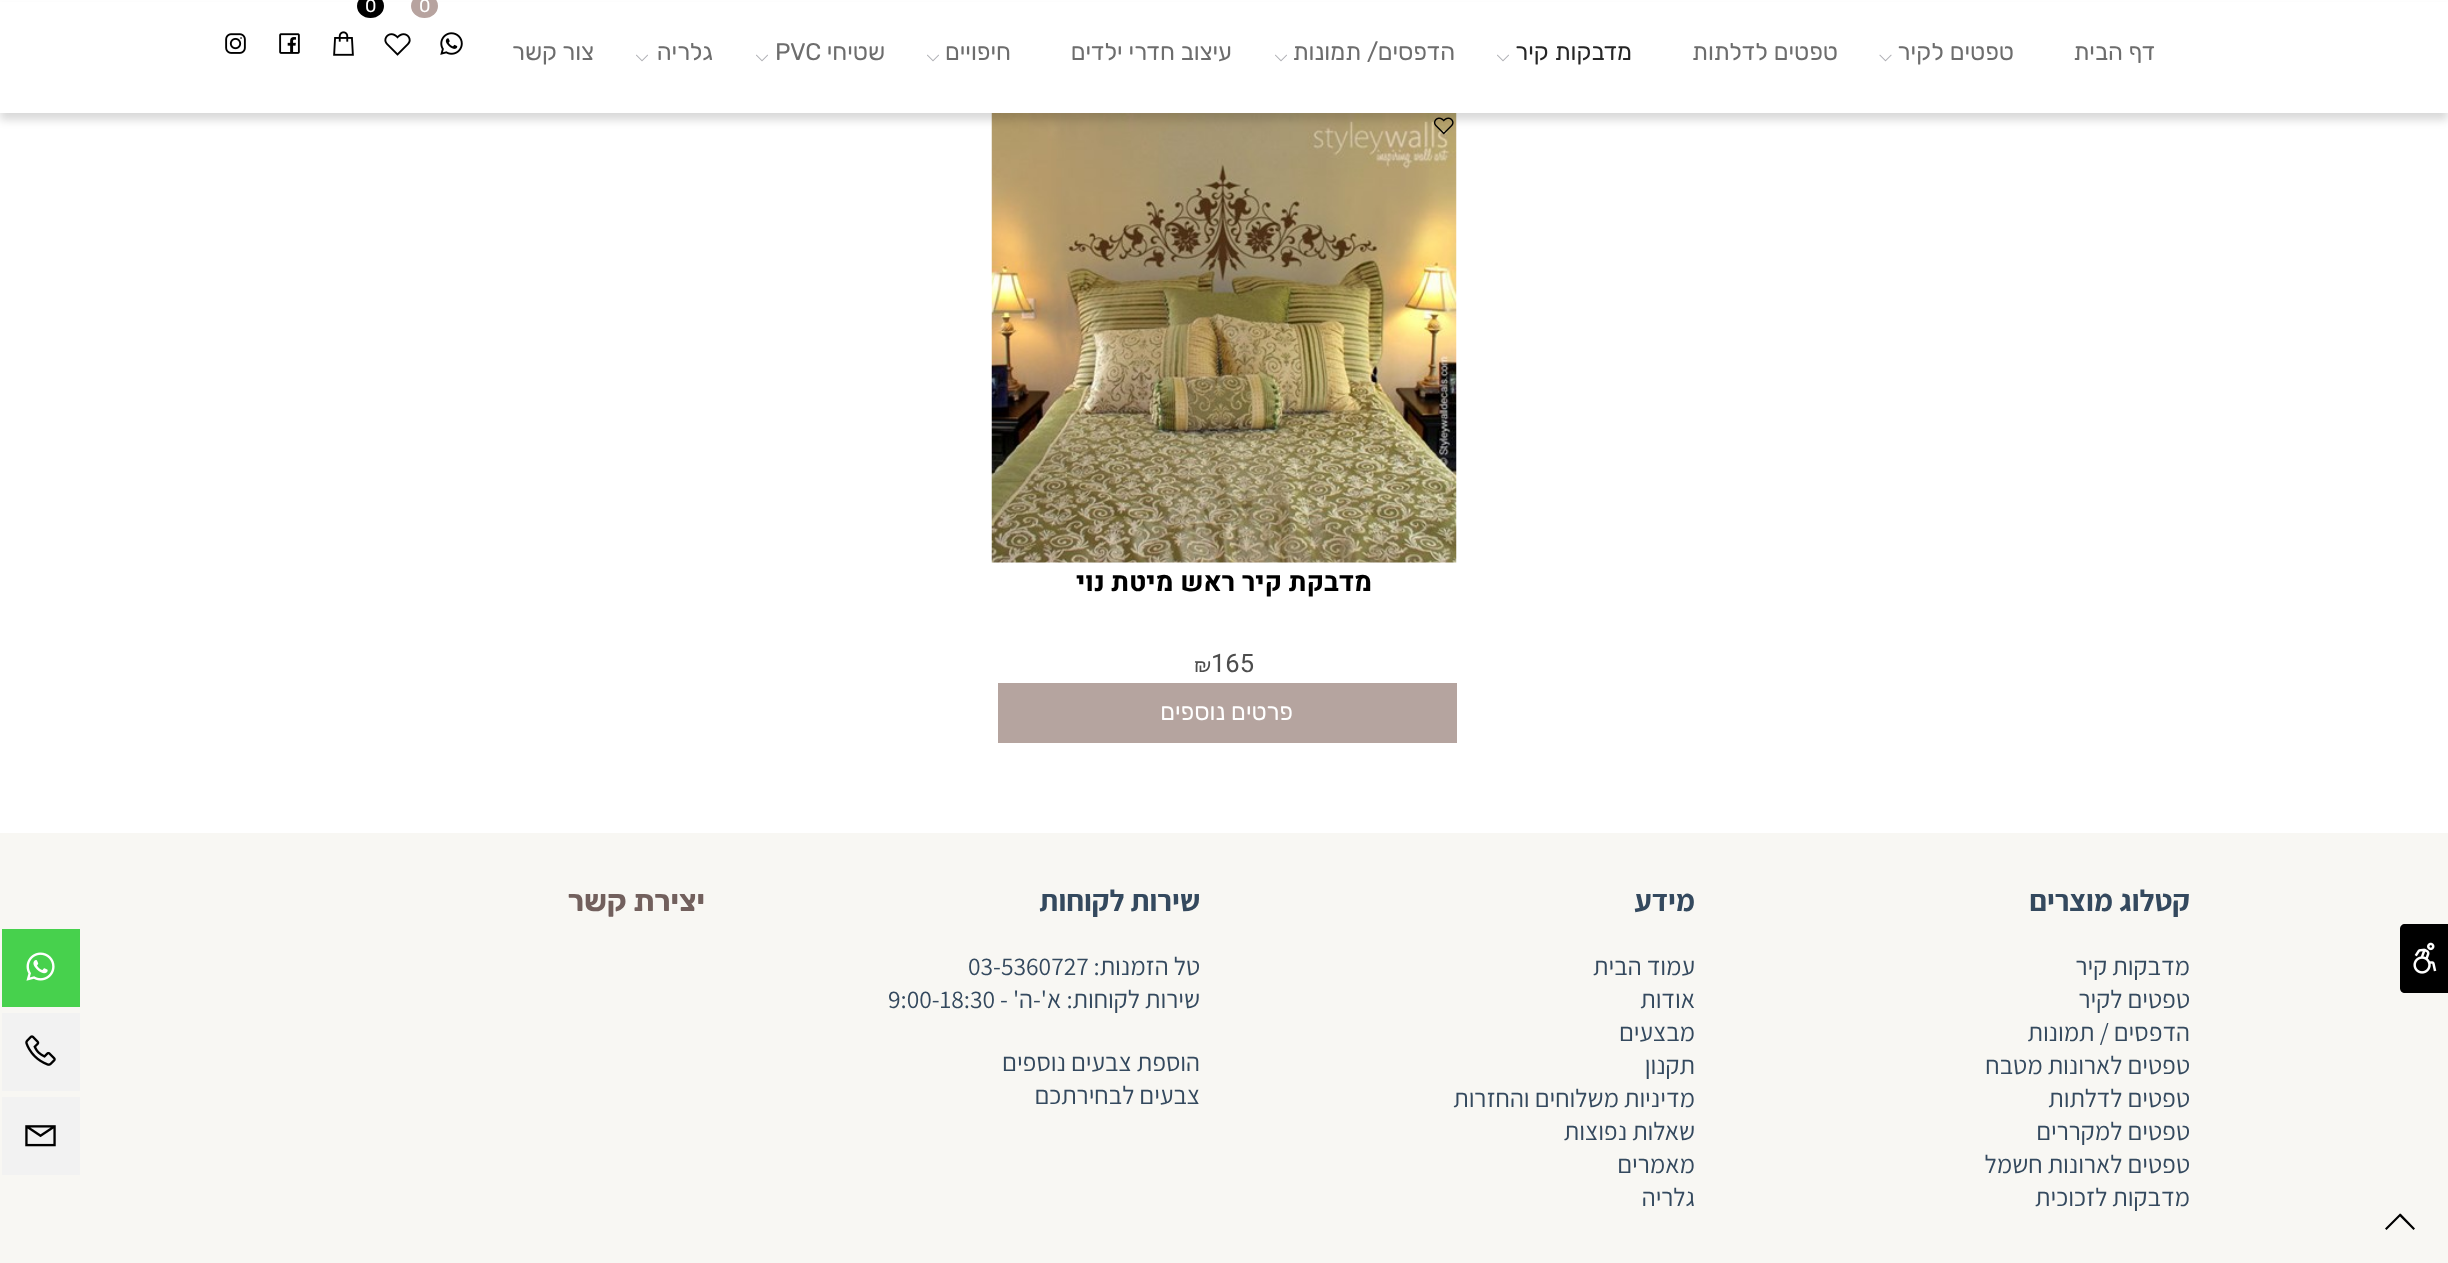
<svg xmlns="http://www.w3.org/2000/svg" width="2448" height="1263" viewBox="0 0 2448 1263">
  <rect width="100%" height="100%" fill="#fff"/>
  <image x="991" y="113" width="466" height="450" href="img/8.png"/>
  <image x="1433" y="117" width="21" height="18" href="img/9.png"/>
  <path d="M0 8h2448v112H0z" fill="#00000026" filter="blur(4px)"/>
  <path d="M0 2h2448v111H0z" fill="#fff"/>
  <ellipse cx="424.5" cy="6" rx="13.5" ry="12" fill="#b7a39f"/>
  <image x="384" y="33" width="27" height="23" href="img/1.png"/>
  <ellipse cx="370.5" cy="6" rx="13.5" ry="12" fill="#000"/>
  <image x="333" y="31" width="21" height="25" href="img/2.png"/>
  <image x="1879" y="54" width="13" height="8" href="img/3.png"/>
  <image x="1497" y="54" width="12" height="8" href="img/4.png"/>
  <image x="1275" y="54" width="12" height="8" href="img/4.png"/>
  <image x="927" y="54" width="12" height="8" href="img/4.png"/>
  <image x="756" y="54" width="12" height="8" href="img/4.png"/>
  <image x="636" y="54" width="12" height="8" href="img/4.png"/>
  <image x="440" y="32" width="23" height="23" href="img/5.png"/>
  <image x="279" y="33" width="21" height="21" href="img/6.png"/>
  <image x="225" y="33" width="21" height="21" href="img/7.png"/>
  <path d="M998 683h459v60H998z" fill="#b5a49f"/>
  <path d="M0 833h2448v430H0z" fill="#f8f7f3"/>
  <path d="M2405 924H2448V993H2405C2402 993 2400 991 2400 988V929C2400 926 2402 924 2405 924Z" fill="#000"/>
  <image x="2413" y="942" width="24" height="32" href="img/10.png"/>
  <path d="M2 929h78v78H2z" fill="#47d14d"/>
  <image x="26" y="952" width="29" height="29" href="img/11.png"/>
  <path d="M2 1013h78v78H2z" fill="#f2f2f2"/>
  <image x="25" y="1035" width="31" height="31" href="img/12.png"/>
  <path d="M2 1097h78v78H2z" fill="#f2f2f2"/>
  <image x="25" y="1125" width="31" height="22" href="img/13.png"/>
  <path d="M2400 1213.5L2385 1228.5L2386.5 1230L2400 1216.5L2413.5 1230L2415 1228.5L2401 1214Z" fill="#000"/>
  <g font-family="Rubik" font-size="18" fill="#fff">
    <text x="419" y="12">0</text>
    <text x="365" y="12">0</text>
  </g>
  <g font-family="Rubik" font-size="24" direction="rtl" fill="#6d6d6d">
    <text x="2155" y="60">דף הבית</text>
    <text x="2014" y="60">טפטים לקיר</text>
    <text x="1838" y="60">טפטים לדלתות</text>
  </g>
  <text x="1632" y="60" font-family="Rubik" font-size="24" direction="rtl" fill="#262626">מדבקות קיר</text>
  <g font-family="Rubik" font-size="24" direction="rtl" fill="#6d6d6d">
    <text x="1455" y="60">הדפסים/</text>
    <text x="1361" y="60">תמונות</text>
    <text x="1232" y="60">עיצוב חדרי ילדים</text>
    <text x="1011" y="60">חיפויים</text>
    <text x="885" y="60">שטיחי</text>
  </g>
  <text x="775" y="60" font-family="Rubik" font-size="24" fill="#6d6d6d">PVC</text>
  <g font-family="Rubik" font-size="24" direction="rtl" fill="#6d6d6d">
    <text x="713" y="60">גלריה</text>
    <text x="594" y="60">צור קשר</text>
  </g>
  <text x="1372" y="591" font-family="Heebo" font-size="27" font-weight="bold" direction="rtl" fill="#000">מדבקת קיר ראש מיטת נוי</text>
  <text x="1211" y="672" font-family="Heebo" font-size="25.5" fill="#4d4d4d">165</text>
  <text x="1194" y="672" font-family="Alef" font-size="21" fill="#4d4d4d">₪</text>
  <text x="1293" y="720" font-family="Rubik" font-size="24" direction="rtl" fill="#fff">פרטים נוספים</text>
  <text x="2190" y="911" font-family="Assistant" font-size="30" font-weight="bold" direction="rtl" fill="#34495e">קטלוג מוצרים</text>
  <g font-family="Assistant" font-size="25.5" direction="rtl" fill="#34495e">
    <text x="2190" y="975">מדבקות קיר</text>
    <text x="2190" y="1008">טפטים לקיר</text>
    <text x="2190" y="1041">הדפסים / תמונות</text>
    <text x="2190" y="1074">טפטים לארונות מטבח</text>
    <text x="2190" y="1107">טפטים לד</text>
    <text x="2097" y="1107">לתות</text>
    <text x="2190" y="1140">טפטים למקררים</text>
    <text x="2190" y="1173">טפטים לארונות חשמל</text>
    <text x="2190" y="1206">מדבקות לזכוכית</text>
  </g>
  <text x="1695" y="911" font-family="Assistant" font-size="30" font-weight="bold" direction="rtl" fill="#34495e">מידע</text>
  <g font-family="Assistant" font-size="25.5" direction="rtl" fill="#34495e">
    <text x="1695" y="975">עמוד הבית</text>
    <text x="1695" y="1008">אודות</text>
    <text x="1695" y="1041">מבצעים</text>
    <text x="1695" y="1074">תקנון</text>
    <text x="1695" y="1107">מדיניות משלוחים והחזרות</text>
    <text x="1695" y="1140">שאלות נפוצות</text>
    <text x="1695" y="1173">מאמרים</text>
    <text x="1695" y="1206">גלריה</text>
  </g>
  <text x="1200" y="911" font-family="Assistant" font-size="30" font-weight="bold" direction="rtl" fill="#34495e">שירות לקוחות</text>
  <g font-family="Assistant" font-size="25.5" direction="rtl" fill="#34495e">
    <text x="1200" y="975">ט</text>
    <text x="1186" y="975">ל הזמנות:</text>
  </g>
  <text x="968" y="975" font-family="Assistant" font-size="25.5" fill="#34495e">03-5360727</text>
  <text x="1200" y="1008" font-family="Assistant" font-size="25.5" direction="rtl" fill="#34495e">שירות לקוחות: א'-ה' -</text>
  <text x="888" y="1008" font-family="Assistant" font-size="25.5" fill="#34495e">9:00-18:30</text>
  <g font-family="Assistant" font-size="25.5" direction="rtl" fill="#34495e">
    <text x="1200" y="1071">הוספת צבעים נוספים</text>
    <text x="1200" y="1104">צבעים לבחירתכם</text>
  </g>
  <text x="705" y="911" font-family="Rubik" font-size="30" font-weight="bold" direction="rtl" fill="#72605d">יצירת קשר</text>
</svg>
